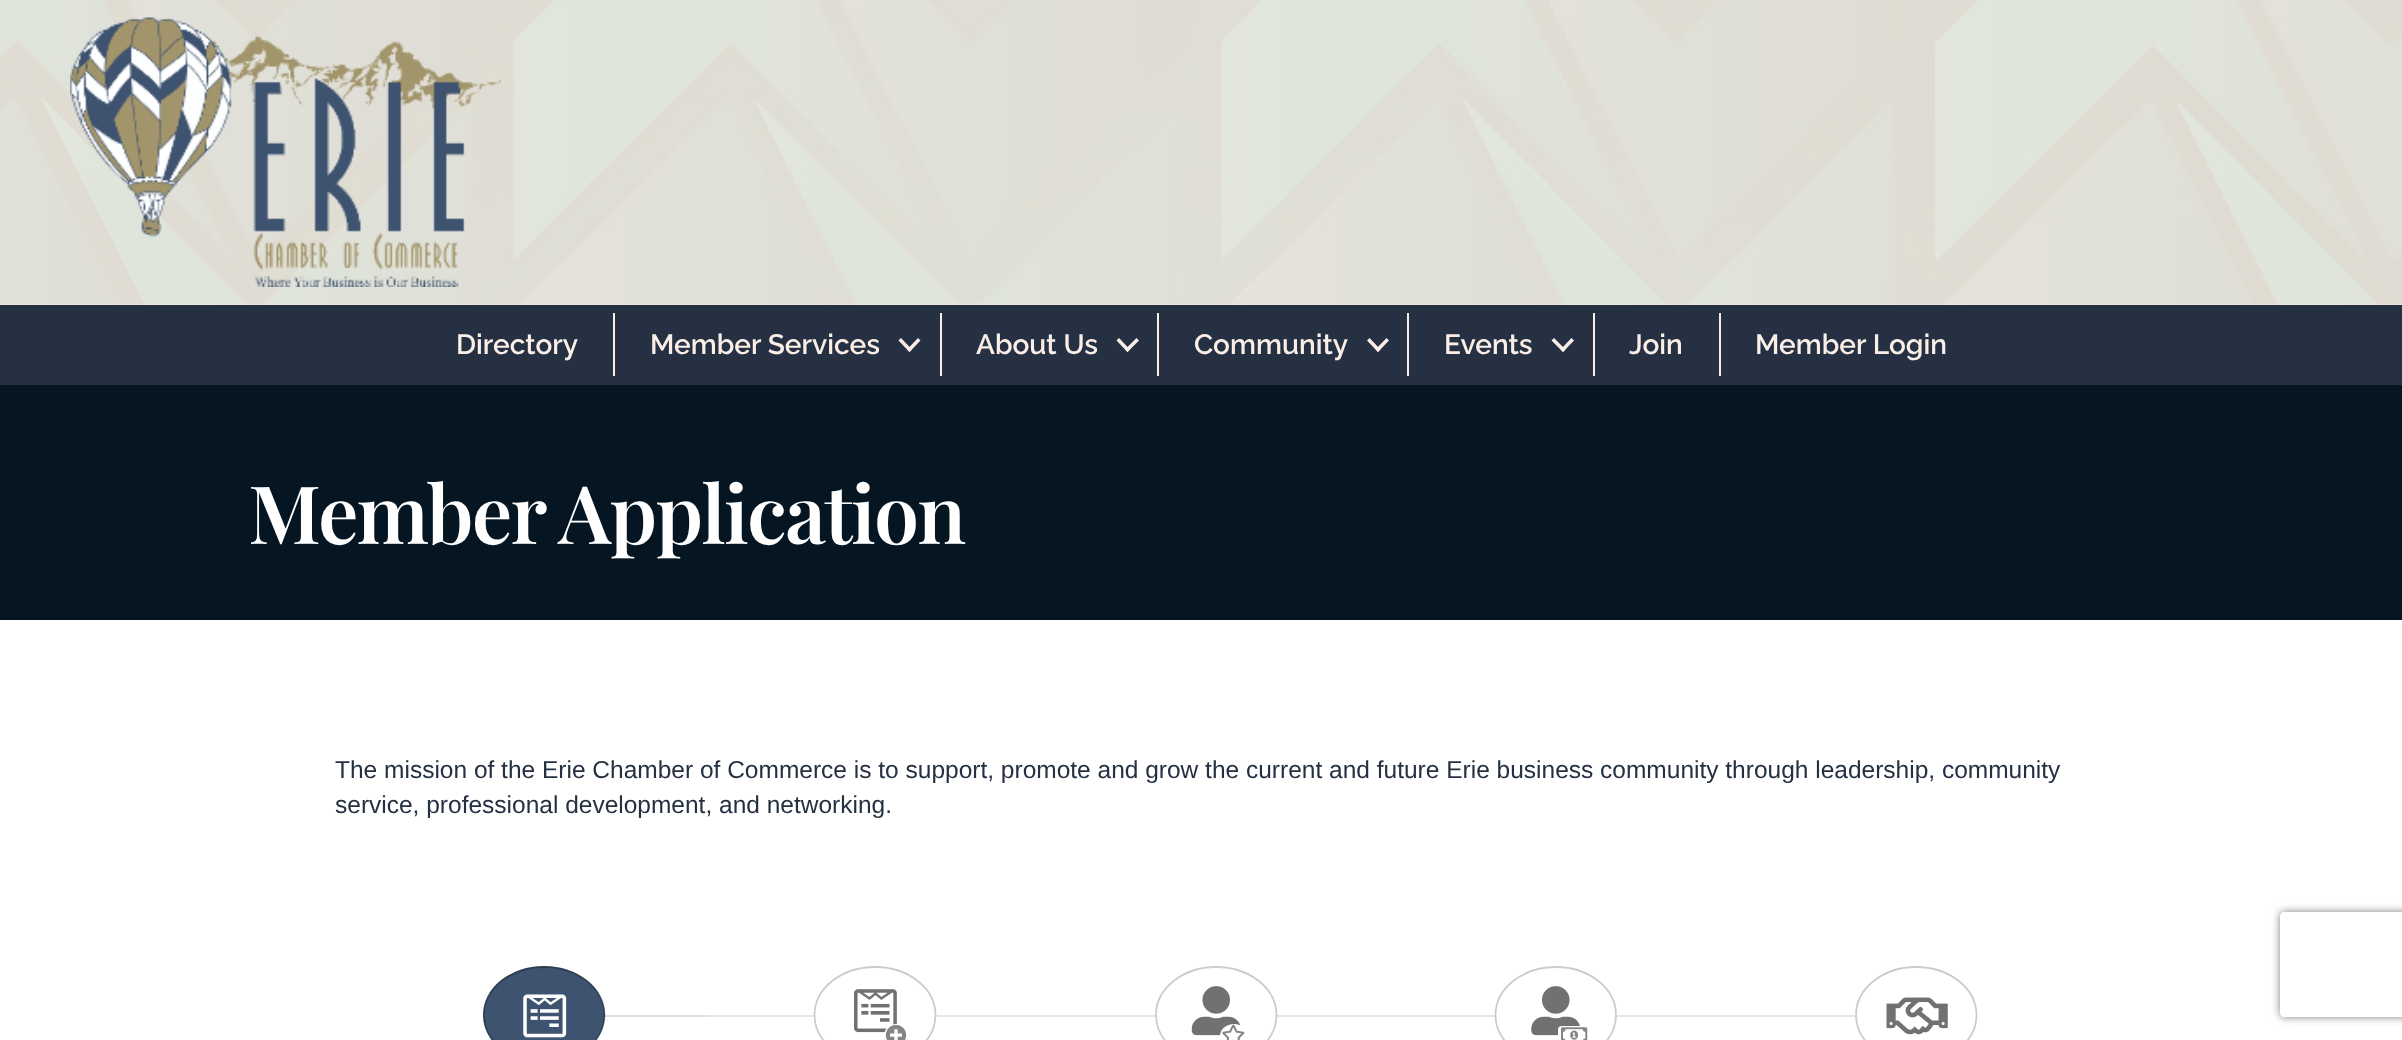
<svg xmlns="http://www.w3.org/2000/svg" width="2402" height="1040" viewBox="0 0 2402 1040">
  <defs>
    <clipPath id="clip1"><path d="M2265 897H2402V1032H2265ZM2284 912H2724C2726 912 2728 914 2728 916V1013C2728 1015 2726 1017 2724 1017H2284C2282 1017 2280 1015 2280 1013V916C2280 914 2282 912 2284 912Z" clip-rule="evenodd"/></clipPath>
  </defs>
  <rect width="100%" height="100%" fill="#fff"/>
  <path d="M0 304h2402v1H0z" fill="#fbeee6"/>
  <image x="0" y="0" width="2402" height="305" href="img/1.png"/>
  <image x="70" y="17" width="431" height="270" href="img/2.png"/>
  <path d="M0 305h2402v80H0z" fill="#253143"/>
  <path d="M613 313h2v63H613z" fill="#fbeee6"/>
  <path d="M918 338L920.5 340.5L909.5 352L907 349.5Z" fill="#fbeee6"/>
  <path d="M901 338L912 349.5L909.5 352L898.5 340.5Z" fill="#fbeee6"/>
  <path d="M940 313h2v63H940z" fill="#fbeee6"/>
  <path d="M1136.5 338L1139 340.5L1127.5 352L1125 349.5Z" fill="#fbeee6"/>
  <path d="M1119 338L1130 349.5L1127.5 352L1116.5 340.5Z" fill="#fbeee6"/>
  <path d="M1157 313h2v63H1157z" fill="#fbeee6"/>
  <path d="M1386.5 338L1389 340.5L1378 352L1375.5 349.5Z" fill="#fbeee6"/>
  <path d="M1369.5 338L1380.5 349.5L1378 352L1367 340.5Z" fill="#fbeee6"/>
  <path d="M1407 313h2v63H1407z" fill="#fbeee6"/>
  <path d="M1571.5 338L1574 340.5L1563 352L1560.5 349.5Z" fill="#fbeee6"/>
  <path d="M1554 338L1565.5 349.5L1563 352L1551.5 340.5Z" fill="#fbeee6"/>
  <path d="M1593 313h2v63H1593z" fill="#fbeee6"/>
  <path d="M1719 313h2v63H1719z" fill="#fbeee6"/>
  <path d="M0 385h2402v235H0z" fill="#051622"/>
  <path d="M604 1015h105v2H604z" fill="#dfdfdf"/>
  <ellipse cx="544" cy="1015" rx="61" ry="49" fill="#3e5370"/>
  <path d="M544 967C577.5 967 604.5 988.5 604.5 1015C604.5 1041.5 577.5 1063 544 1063C511 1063 484 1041.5 484 1015C484 988.5 511 967 544 967Z" fill="none" stroke="#00000040" stroke-width="1.8"/>
  <image x="523" y="994" width="44" height="44" href="img/3.png"/>
  <path d="M709 1015h1147v2H709z" fill="#e6e6e6"/>
  <ellipse cx="875" cy="1015" rx="61" ry="49" fill="#fff"/>
  <path d="M875 967C908.5 967 935.5 988.5 935.5 1015C935.5 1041.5 908.5 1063 875 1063C841.5 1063 814.5 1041.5 814.5 1015C814.5 988.5 841.5 967 875 967Z" fill="none" stroke="#ccc" stroke-width="1.8"/>
  <image x="854" y="989" width="43" height="44" href="img/4.png"/>
  <circle cx="896" cy="1036" r="12" fill="#fff"/>
  <image x="885" y="1025" width="22" height="15" href="img/5.png"/>
  <ellipse cx="1216" cy="1015" rx="61" ry="49" fill="#fff"/>
  <path d="M1216 967C1249.5 967 1276.5 988.5 1276.5 1015C1276.5 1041.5 1249.5 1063 1216 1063C1183 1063 1156 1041.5 1156 1015C1156 988.5 1183 967 1216 967Z" fill="none" stroke="#ccc" stroke-width="1.8"/>
  <image x="1191" y="986" width="50" height="50" href="img/6.png"/>
  <ellipse cx="1234" cy="1036" rx="14" ry="12" fill="#fff"/>
  <image x="1222" y="1024" width="23" height="16" href="img/7.png"/>
  <ellipse cx="1556" cy="1015" rx="61" ry="49" fill="#fff"/>
  <path d="M1556 967C1589 967 1616 988.5 1616 1015C1616 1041.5 1589 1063 1556 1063C1522.5 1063 1495.5 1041.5 1495.5 1015C1495.5 988.5 1522.5 967 1556 967Z" fill="none" stroke="#ccc" stroke-width="1.8"/>
  <image x="1531" y="986" width="49" height="50" href="img/8.png"/>
  <rect x="1558" y="1026" width="33" height="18" rx="4" fill="#fff"/>
  <image x="1561" y="1027" width="27" height="13" href="img/9.png"/>
  <ellipse cx="1916" cy="1015" rx="61" ry="49" fill="#fff"/>
  <path d="M1916 967C1949.5 967 1976.5 988.5 1976.5 1015C1976.5 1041.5 1949.5 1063 1916 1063C1883 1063 1856 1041.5 1856 1015C1856 988.5 1883 967 1916 967Z" fill="none" stroke="#ccc" stroke-width="1.8"/>
  <image x="1886" y="997" width="62" height="38" href="img/10.png"/>
  <g clip-path="url(#clip1)">
    <rect x="2280" y="912" width="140" height="105" rx="4" fill="#808080" filter="blur(4.5px)"/>
  </g>
  <g font-family="Raleway" font-size="28" font-weight="100" fill="#fbeee6">
    <text x="456" y="354">Directory</text>
    <text x="650" y="354">Member Services</text>
    <text x="976" y="354">About Us</text>
    <text x="1194" y="354">Community</text>
    <text x="1444" y="354">Events</text>
    <text x="1629" y="354">Join</text>
    <text x="1755" y="354">Member Login</text>
  </g>
  <text x="248" y="544" font-family="Playfair Display" font-size="80.5" font-weight="600" letter-spacing="-1.75" fill="#fff">Member Application</text>
  <g font-family="Liberation Sans" font-size="24.5" fill="#253143">
    <text x="335" y="778">The mission of the Erie Chamber of Commerce is to support, promote and grow the current and future Erie business community through leadership, community</text>
    <text x="335" y="813">service, professional development, and networking.</text>
  </g>
</svg>
